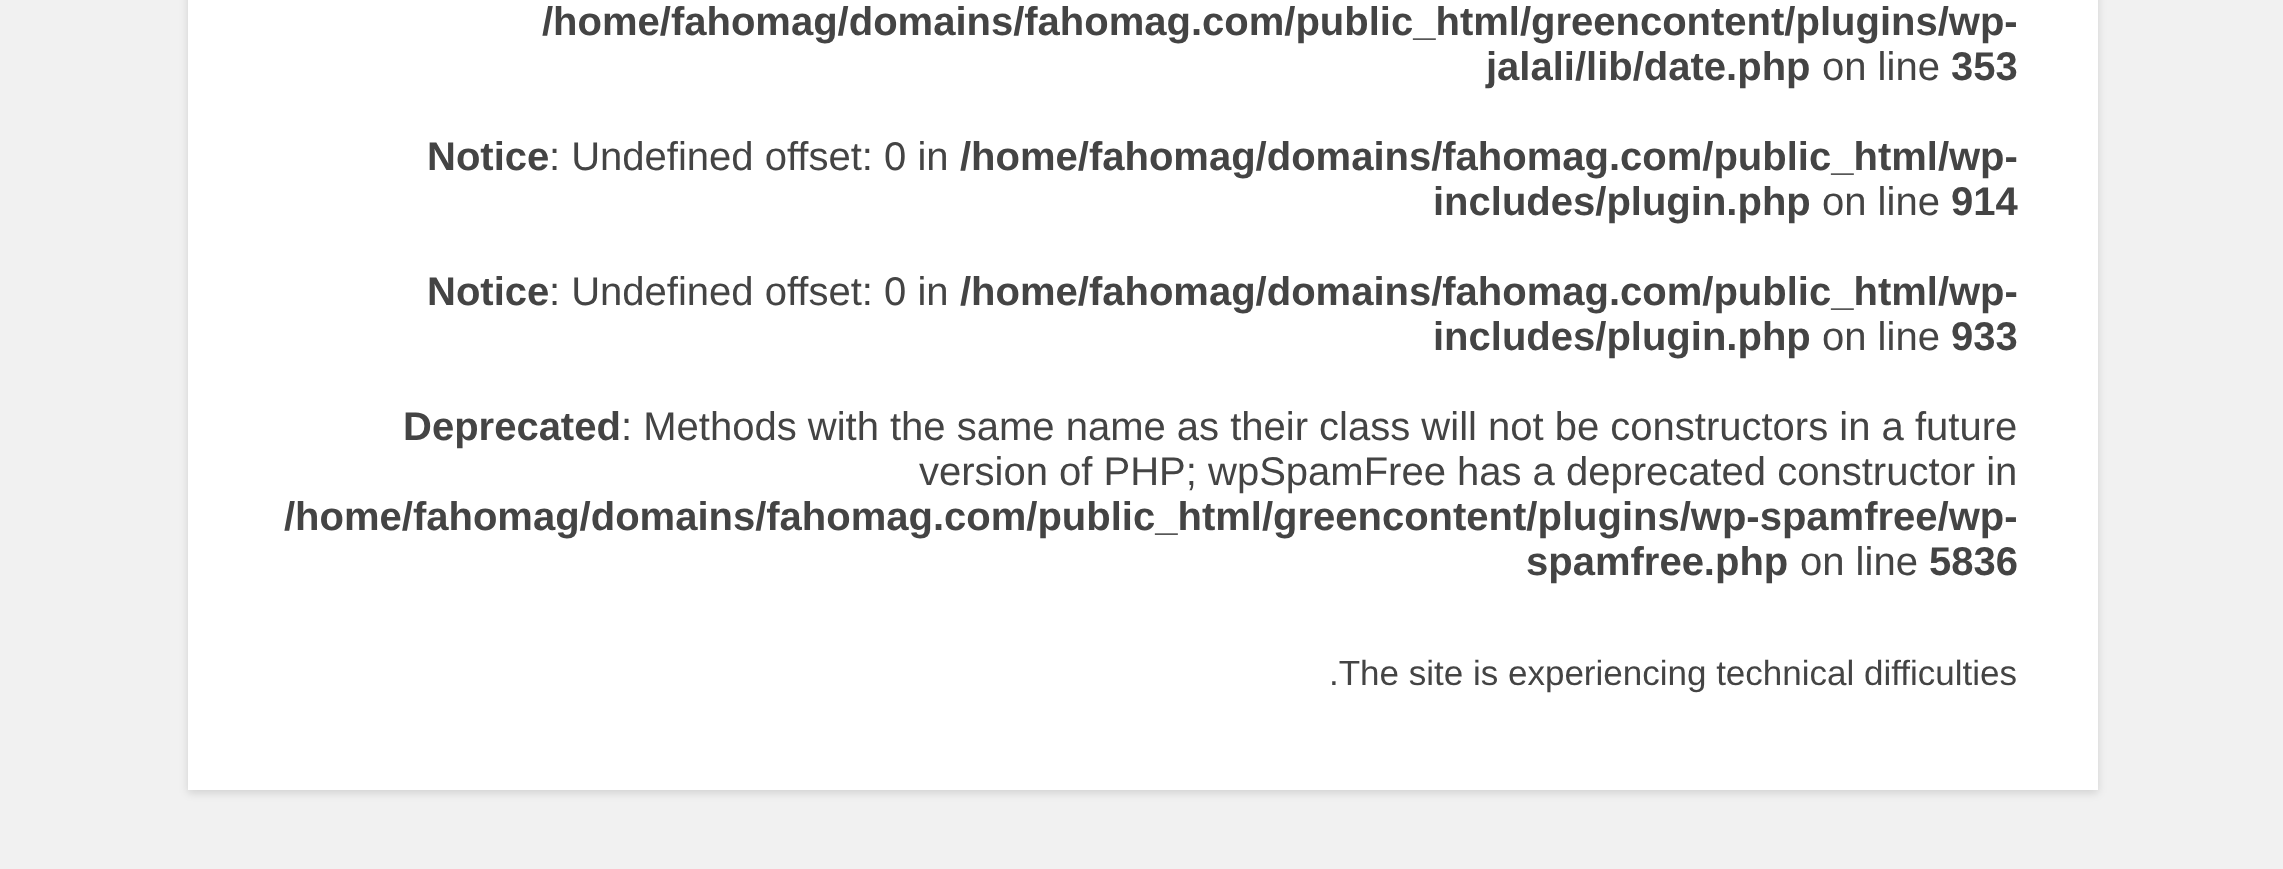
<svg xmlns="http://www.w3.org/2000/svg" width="2283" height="869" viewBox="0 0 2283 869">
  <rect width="100%" height="100%" fill="#f1f1f1"/>
  <path d="M188 -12h1910v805H188z" fill="#00000021" filter="blur(4px)"/>
  <path d="M188 0h1910v790H188z" fill="#fff"/>
  <g font-family="Liberation Sans" font-size="40" font-weight="bold" fill="#444">
    <text x="542" y="35">/home/fahomag/domains/fahomag.com/public_html/greencontent/plugins/wp-</text>
    <text x="1486" y="80">jalali/lib/date.php</text>
  </g>
  <text x="1822" y="80" font-family="Liberation Sans" font-size="40" fill="#444">on line</text>
  <g font-family="Liberation Sans" font-size="40" font-weight="bold" fill="#444">
    <text x="1951" y="80">353</text>
    <text x="427" y="170">Notice</text>
  </g>
  <text x="549" y="170" font-family="Liberation Sans" font-size="40" fill="#444">: Undefined offset: 0 in</text>
  <g font-family="Liberation Sans" font-size="40" font-weight="bold" fill="#444">
    <text x="960" y="170">/home/fahomag/domains/fahomag.com/public_html/wp-</text>
    <text x="1433" y="215">includes/plugin.php</text>
  </g>
  <text x="1822" y="215" font-family="Liberation Sans" font-size="40" fill="#444">on line</text>
  <g font-family="Liberation Sans" font-size="40" font-weight="bold" fill="#444">
    <text x="1951" y="215">914</text>
    <text x="427" y="305">Notice</text>
  </g>
  <text x="549" y="305" font-family="Liberation Sans" font-size="40" fill="#444">: Undefined offset: 0 in</text>
  <g font-family="Liberation Sans" font-size="40" font-weight="bold" fill="#444">
    <text x="960" y="305">/home/fahomag/domains/fahomag.com/public_html/wp-</text>
    <text x="1433" y="350">includes/plugin.php</text>
  </g>
  <text x="1822" y="350" font-family="Liberation Sans" font-size="40" fill="#444">on line</text>
  <g font-family="Liberation Sans" font-size="40" font-weight="bold" fill="#444">
    <text x="1951" y="350">933</text>
    <text x="403" y="440">Deprecated</text>
  </g>
  <g font-family="Liberation Sans" font-size="40" fill="#444">
    <text x="621" y="440">: Methods with the same name as their class will not be constructors in a future</text>
    <text x="919" y="485">version of PHP; wpSpamFree has a deprecated constructor in</text>
  </g>
  <g font-family="Liberation Sans" font-size="40" font-weight="bold" fill="#444">
    <text x="284" y="530">/home/fahomag/domains/fahomag.com/public_html/greencontent/plugins/wp-spamfree/wp-</text>
    <text x="1526" y="575">spamfree.php</text>
  </g>
  <text x="1800" y="575" font-family="Liberation Sans" font-size="40" fill="#444">on line</text>
  <text x="1929" y="575" font-family="Liberation Sans" font-size="40" font-weight="bold" fill="#444">5836</text>
  <text x="1329" y="685" font-family="Liberation Sans" font-size="35" fill="#444">.The site is experiencing technical difficulties</text>
</svg>
